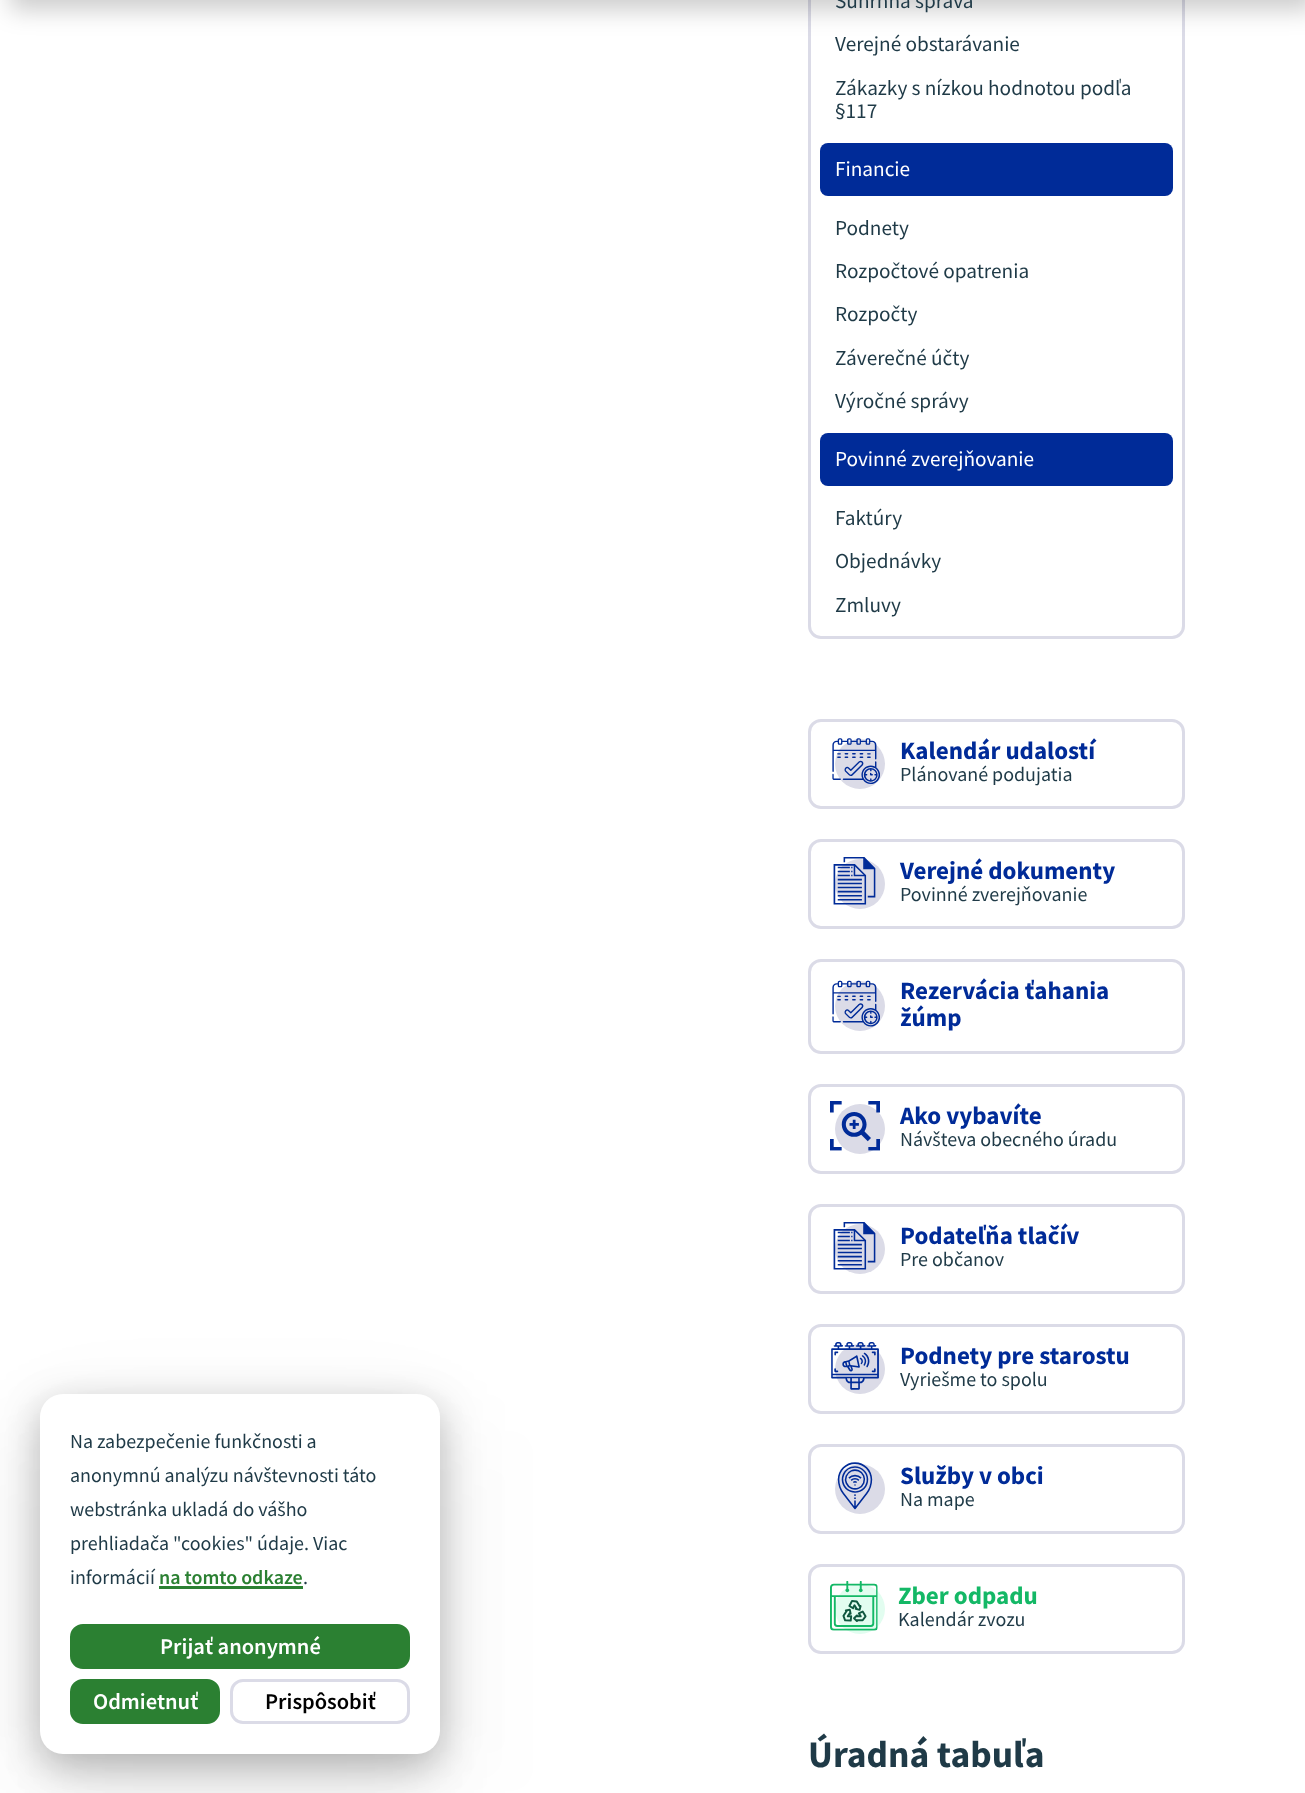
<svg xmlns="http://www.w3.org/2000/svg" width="1305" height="1793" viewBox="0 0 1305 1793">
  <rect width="100%" height="100%" fill="#fff"/>
  <rect x="40" y="1431" width="400" height="360" rx="23" fill="#0000000d" filter="blur(56px)"/>
  <rect x="40" y="1419" width="400" height="360" rx="23" fill="#0000000d" filter="blur(37.5px)"/>
  <rect x="40" y="1406" width="400" height="360" rx="23" fill="#00000040" filter="blur(19px)"/>
  <rect x="40" y="1394" width="400" height="360" rx="23" fill="#fff"/>
  <path d="M159 1586h144v3H159z" fill="#2b8032"/>
  <rect x="71.5" y="1625.5" width="337" height="42" rx="11.5" fill="#2b8032" stroke="#2b8032" stroke-width="3"/>
  <rect x="71.5" y="1680.5" width="147" height="42" rx="11.5" fill="#2b8032" stroke="#2b8032" stroke-width="3"/>
  <rect x="231.5" y="1680.5" width="177" height="42" rx="11.5" fill="none" stroke="#dbdbe7" stroke-width="3"/>
  <rect x="809.5" y="-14.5" width="374" height="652" rx="11.5" fill="none" stroke="#dbdbe7" stroke-width="3"/>
  <path d="M10 -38h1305v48H10z" fill="#00000033" filter="blur(12.5px)"/>
  <rect x="820" y="143" width="353" height="53" rx="8" fill="#002b98"/>
  <rect x="820" y="433" width="353" height="53" rx="8" fill="#002b98"/>
  <rect x="809.5" y="720.5" width="374" height="87" rx="11.5" fill="none" stroke="#dbdbe7" stroke-width="3"/>
  <circle cx="860" cy="764" r="25" fill="#dbdbe7"/>
  <image x="832" y="738" width="48" height="46" href="img/1.png"/>
  <rect x="809.5" y="840.5" width="374" height="87" rx="11.5" fill="none" stroke="#dbdbe7" stroke-width="3"/>
  <circle cx="860" cy="884" r="25" fill="#dbdbe7"/>
  <image x="833" y="857" width="43" height="48" href="img/2.png"/>
  <rect x="809.5" y="960.5" width="374" height="92" rx="11.5" fill="none" stroke="#dbdbe7" stroke-width="3"/>
  <circle cx="860" cy="1006" r="25" fill="#dbdbe7"/>
  <image x="832" y="980" width="48" height="47" href="img/3.png"/>
  <rect x="809.5" y="1085.5" width="374" height="87" rx="11.5" fill="none" stroke="#dbdbe7" stroke-width="3"/>
  <circle cx="860" cy="1129" r="25" fill="#dbdbe7"/>
  <image x="830" y="1101" width="50" height="50" href="img/4.png"/>
  <rect x="809.5" y="1205.5" width="374" height="87" rx="11.5" fill="none" stroke="#dbdbe7" stroke-width="3"/>
  <circle cx="860" cy="1249" r="25" fill="#dbdbe7"/>
  <image x="833" y="1222" width="43" height="48" href="img/2.png"/>
  <rect x="809.5" y="1325.5" width="374" height="87" rx="11.5" fill="none" stroke="#dbdbe7" stroke-width="3"/>
  <circle cx="860" cy="1369" r="25" fill="#dbdbe7"/>
  <image x="831" y="1342" width="48" height="48" href="img/5.png"/>
  <rect x="809.5" y="1445.5" width="374" height="87" rx="11.5" fill="none" stroke="#dbdbe7" stroke-width="3"/>
  <circle cx="860" cy="1489" r="25" fill="#dbdbe7"/>
  <image x="837" y="1462" width="36" height="48" href="img/6.png"/>
  <rect x="809.5" y="1565.5" width="374" height="87" rx="11.5" fill="none" stroke="#dbdbe7" stroke-width="3"/>
  <circle cx="860" cy="1609" r="25" fill="#e2fdf0"/>
  <image x="830" y="1581" width="48" height="50" href="img/7.png"/>
  <g font-family="Source Sans Pro" font-size="20" fill="#1f3a47">
    <text x="70" y="1448">Na zabezpečenie funkčnosti a</text>
    <text x="70" y="1482">anonymnú analýzu návštevnosti táto</text>
    <text x="70" y="1516">webstránka ukladá do vášho</text>
    <text x="70" y="1550">prehliadača "cookies" údaje. Viac</text>
    <text x="70" y="1584">informácií</text>
  </g>
  <text x="159" y="1584" font-family="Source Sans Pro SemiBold" font-size="20" font-weight="600" fill="#2b8032">na tomto odkaze</text>
  <text x="303" y="1584" font-family="Source Sans Pro" font-size="20" fill="#1f3a47">.</text>
  <g font-family="Source Sans Pro SemiBold" font-size="22.5" font-weight="600" fill="#fff">
    <text x="160" y="1654">Prijať anonymné</text>
    <text x="93" y="1709">Odmietnuť</text>
  </g>
  <text x="265" y="1709" font-family="Source Sans Pro SemiBold" font-size="22.5" font-weight="600" fill="#000">Prispôsobiť</text>
  <g font-family="Source Sans Pro" font-size="21.25" fill="#1f3a47">
    <text x="835" y="8">Súhrnná správa</text>
    <text x="835" y="51">Verejné obstarávanie</text>
    <text x="835" y="95">Zákazky s nízkou hodnotou podľa</text>
    <text x="835" y="118">§117</text>
  </g>
  <text x="835" y="176" font-family="Source Sans Pro" font-size="21.25" fill="#fff">Financie</text>
  <g font-family="Source Sans Pro" font-size="21.25" fill="#1f3a47">
    <text x="835" y="235">Podnety</text>
    <text x="835" y="278">Rozpočtové opatrenia</text>
    <text x="835" y="321">Rozpočty</text>
    <text x="835" y="365">Záverečné účty</text>
    <text x="835" y="408">Výročné správy</text>
  </g>
  <text x="835" y="466" font-family="Source Sans Pro" font-size="21.25" fill="#fff">Povinné zverejňovanie</text>
  <g font-family="Source Sans Pro" font-size="21.25" fill="#1f3a47">
    <text x="835" y="525">Faktúry</text>
    <text x="835" y="568">Objednávky</text>
    <text x="835" y="612">Zmluvy</text>
  </g>
  <text x="900" y="759" font-family="Source Sans Pro" font-size="25" font-weight="bold" fill="#002b98">Kalendár udalostí</text>
  <text x="900" y="781" font-family="Source Sans Pro" font-size="20" fill="#1f3a47">Plánované podujatia</text>
  <text x="900" y="879" font-family="Source Sans Pro" font-size="25" font-weight="bold" fill="#002b98">Verejné dokumenty</text>
  <text x="900" y="901" font-family="Source Sans Pro" font-size="20" fill="#1f3a47">Povinné zverejňovanie</text>
  <g font-family="Source Sans Pro" font-size="25" font-weight="bold" fill="#002b98">
    <text x="900" y="999">Rezervácia ťahania</text>
    <text x="900" y="1026">žúmp</text>
    <text x="900" y="1124">Ako vybavíte</text>
  </g>
  <text x="900" y="1146" font-family="Source Sans Pro" font-size="20" fill="#1f3a47">Návšteva obecného úradu</text>
  <text x="900" y="1244" font-family="Source Sans Pro" font-size="25" font-weight="bold" fill="#002b98">Podateľňa tlačív</text>
  <text x="900" y="1266" font-family="Source Sans Pro" font-size="20" fill="#1f3a47">Pre občanov</text>
  <text x="900" y="1364" font-family="Source Sans Pro" font-size="25" font-weight="bold" fill="#002b98">Podnety pre starostu</text>
  <text x="900" y="1386" font-family="Source Sans Pro" font-size="20" fill="#1f3a47">Vyriešme to spolu</text>
  <text x="900" y="1484" font-family="Source Sans Pro" font-size="25" font-weight="bold" fill="#002b98">Služby v obci</text>
  <text x="900" y="1506" font-family="Source Sans Pro" font-size="20" fill="#1f3a47">Na mape</text>
  <text x="898" y="1604" font-family="Source Sans Pro" font-size="25" font-weight="bold" fill="#14b866">Zber odpadu</text>
  <text x="898" y="1626" font-family="Source Sans Pro" font-size="20" fill="#1f3a47">Kalendár zvozu</text>
  <text x="808" y="1767" font-family="Source Sans Pro" font-size="37.5" font-weight="bold" fill="#1f3a47">Úradná tabuľa</text>
</svg>
